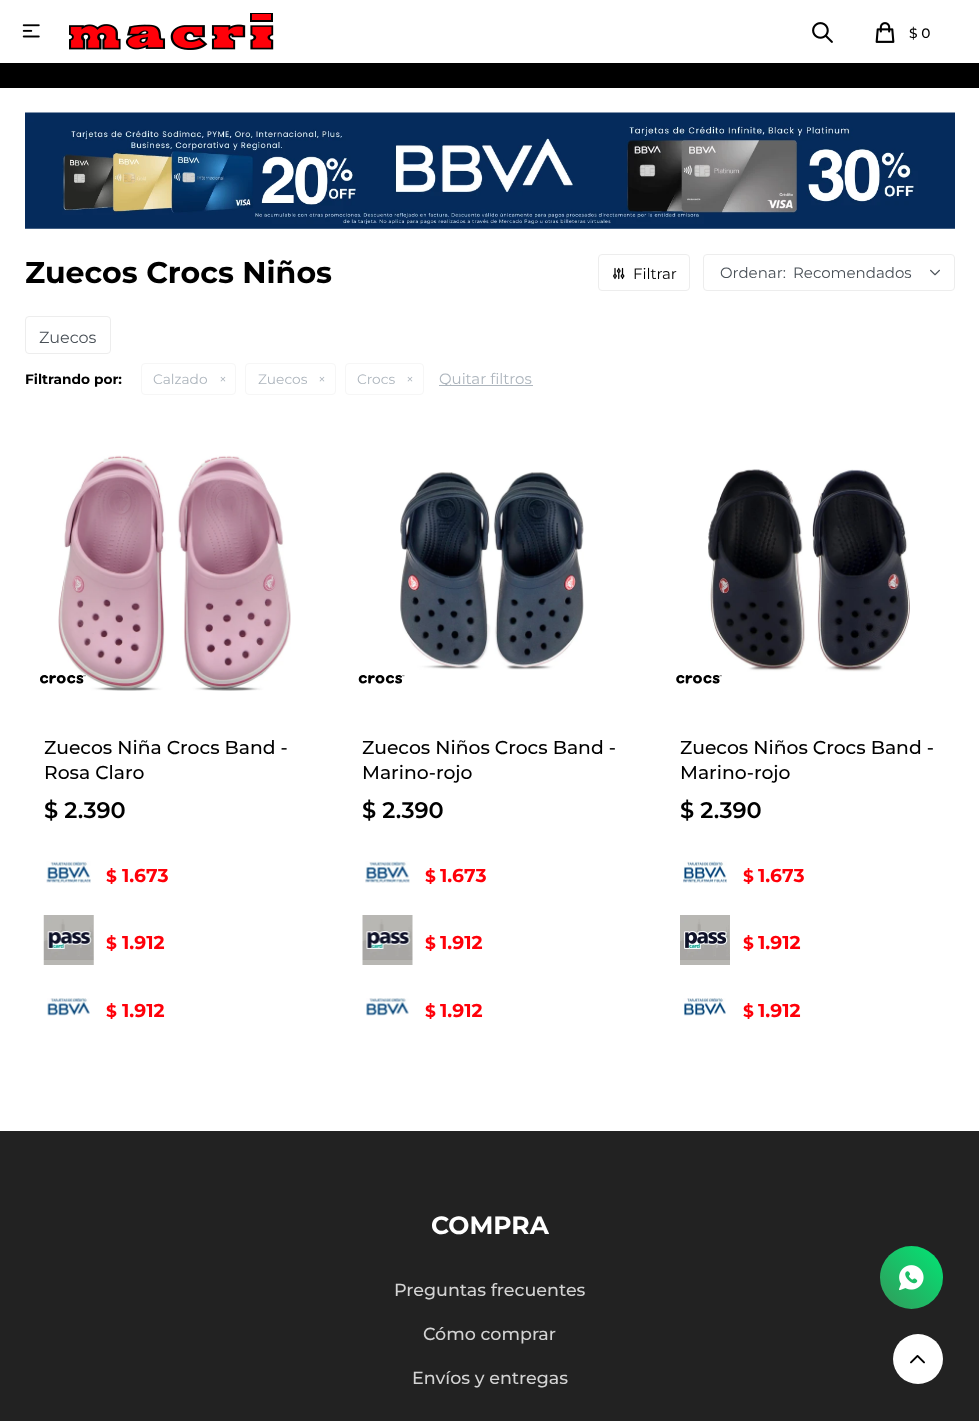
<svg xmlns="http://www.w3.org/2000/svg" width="979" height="1421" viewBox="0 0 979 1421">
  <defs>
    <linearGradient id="g1" gradientUnits="userSpaceOnUse" x1="880" y1="1309" x2="943" y2="1246"><stop offset="0" stop-color="#33995a"/><stop offset="1" stop-color="#01e675"/></linearGradient>
  </defs>
  <rect width="100%" height="100%" fill="#fff"/>
  <path d="M0 63h979v25H0z" fill="#000"/>
  <path d="M-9 3h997v62H-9z" fill="#00000026" filter="blur(3px)"/>
  <path d="M0 0h979v63H0z" fill="#fff"/>
  <image x="22" y="24" width="18" height="14" href="img/1.png"/>
  <image x="69" y="13" width="205" height="37" href="img/2.png"/>
  <image x="812" y="22" width="21" height="21" href="img/3.png"/>
  <image x="875" y="22" width="20" height="21" href="img/4.png"/>
  <image x="25" y="112" width="930" height="117" href="img/5.png"/>
  <rect x="598.5" y="254.5" width="91" height="36" rx="3.5" fill="none" stroke="#ededed"/>
  <image x="613" y="267" width="12" height="13" href="img/6.png"/>
  <image x="930" y="269" width="10" height="7" href="img/7.png"/>
  <rect x="703.5" y="254.5" width="251" height="36" rx="3.5" fill="none" stroke="#ededed"/>
  <rect x="25.5" y="316.5" width="85" height="37" rx="3.5" fill="none" stroke="#ededed"/>
  <rect x="141.5" y="363.5" width="94" height="31" rx="3.5" fill="none" stroke="#f6f6f6"/>
  <rect x="245.5" y="363.5" width="90" height="31" rx="3.5" fill="none" stroke="#f6f6f6"/>
  <rect x="345.5" y="363.5" width="78" height="31" rx="3.5" fill="none" stroke="#f6f6f6"/>
  <path d="M439 385h94v1H439z" fill="#adb5bd"/>
  <image x="58" y="455" width="233" height="236" href="img/8.png"/>
  <image x="40" y="675" width="46" height="9" href="img/9.png"/>
  <image x="46" y="861" width="45" height="22" href="img/10.png"/>
  <image x="43" y="915" width="51" height="50" href="img/11.png"/>
  <image x="47" y="998" width="43" height="18" href="img/12.png"/>
  <image x="400" y="472" width="184" height="198" href="img/13.png"/>
  <image x="358" y="675" width="47" height="9" href="img/14.png"/>
  <image x="365" y="861" width="45" height="22" href="img/15.png"/>
  <image x="362" y="915" width="51" height="50" href="img/16.png"/>
  <image x="366" y="998" width="43" height="18" href="img/17.png"/>
  <image x="708" y="469" width="202" height="203" href="img/18.png"/>
  <image x="676" y="675" width="46" height="9" href="img/19.png"/>
  <image x="683" y="861" width="44" height="22" href="img/20.png"/>
  <image x="680" y="915" width="50" height="50" href="img/21.png"/>
  <image x="683" y="998" width="43" height="18" href="img/22.png"/>
  <path d="M0 1131h979v290H0z" fill="#222"/>
  <circle cx="918" cy="1359" r="25" fill="#fff"/>
  <image x="910" y="1355" width="15" height="9" href="img/23.png"/>
  <circle cx="911.5" cy="1277.5" r="31.5" fill="url(#g1)"/>
  <image x="899" y="1265" width="25" height="26" href="img/24.png"/>
  <text x="909" y="38" font-family="Montserrat" font-size="13.75" font-weight="500" fill="#000">$ 0</text>
  <text x="25" y="283" font-family="Montserrat" font-size="30" font-weight="bold" fill="#000">Zuecos Crocs Niños</text>
  <text x="633" y="279" font-family="Montserrat" font-size="15" fill="#000">Filtrar</text>
  <g font-family="Montserrat" font-size="15" fill="#495057">
    <text x="720" y="278">Ordenar:</text>
    <text x="793" y="278">Recomendados</text>
  </g>
  <text x="39" y="343" font-family="Montserrat" font-size="16" fill="#495057">Zuecos</text>
  <text x="25" y="384" font-family="Montserrat" font-size="13.75" font-weight="bold" fill="#000">Filtrando por:</text>
  <g font-family="Montserrat" font-size="13.75" fill="#adb5bd">
    <text x="153" y="384">Calzado</text>
    <text x="219" y="384">×</text>
    <text x="258" y="384">Zuecos</text>
    <text x="318" y="384">×</text>
    <text x="357" y="384">Crocs</text>
    <text x="406" y="384">×</text>
  </g>
  <text x="439" y="384" font-family="Montserrat" font-size="15" fill="#adb5bd">Quitar filtros</text>
  <g font-family="Montserrat" font-size="18.75" font-weight="500" fill="#000">
    <text x="44" y="754">Zuecos Niña Crocs Band -</text>
    <text x="44" y="779">Rosa Claro</text>
  </g>
  <text x="44" y="818" font-family="Montserrat" font-size="22.5" font-weight="600" fill="#000">$ 2.390</text>
  <text x="106" y="882" font-family="Montserrat" font-size="17" font-weight="bold" fill="#ff0009">$</text>
  <text x="122" y="882" font-family="Montserrat" font-size="18.75" font-weight="bold" fill="#ff0009">1.673</text>
  <text x="106" y="949" font-family="Montserrat" font-size="17" font-weight="bold" fill="#ff0009">$</text>
  <text x="122" y="949" font-family="Montserrat" font-size="18.75" font-weight="bold" fill="#ff0009">1.912</text>
  <text x="106" y="1017" font-family="Montserrat" font-size="17" font-weight="bold" fill="#ff0009">$</text>
  <text x="122" y="1017" font-family="Montserrat" font-size="18.75" font-weight="bold" fill="#ff0009">1.912</text>
  <g font-family="Montserrat" font-size="18.75" font-weight="500" fill="#000">
    <text x="362" y="754">Zuecos Niños Crocs Band -</text>
    <text x="362" y="779">Marino-rojo</text>
  </g>
  <text x="362" y="818" font-family="Montserrat" font-size="22.5" font-weight="600" fill="#000">$ 2.390</text>
  <text x="425" y="882" font-family="Montserrat" font-size="17" font-weight="bold" fill="#ff0009">$</text>
  <text x="440" y="882" font-family="Montserrat" font-size="18.75" font-weight="bold" fill="#ff0009">1.673</text>
  <text x="425" y="949" font-family="Montserrat" font-size="17" font-weight="bold" fill="#ff0009">$</text>
  <text x="440" y="949" font-family="Montserrat" font-size="18.75" font-weight="bold" fill="#ff0009">1.912</text>
  <text x="425" y="1017" font-family="Montserrat" font-size="17" font-weight="bold" fill="#ff0009">$</text>
  <text x="440" y="1017" font-family="Montserrat" font-size="18.75" font-weight="bold" fill="#ff0009">1.912</text>
  <g font-family="Montserrat" font-size="18.75" font-weight="500" fill="#000">
    <text x="680" y="754">Zuecos Niños Crocs Band -</text>
    <text x="680" y="779">Marino-rojo</text>
  </g>
  <text x="680" y="818" font-family="Montserrat" font-size="22.5" font-weight="600" fill="#000">$ 2.390</text>
  <text x="743" y="882" font-family="Montserrat" font-size="17" font-weight="bold" fill="#ff0009">$</text>
  <text x="758" y="882" font-family="Montserrat" font-size="18.75" font-weight="bold" fill="#ff0009">1.673</text>
  <text x="743" y="949" font-family="Montserrat" font-size="17" font-weight="bold" fill="#ff0009">$</text>
  <text x="758" y="949" font-family="Montserrat" font-size="18.75" font-weight="bold" fill="#ff0009">1.912</text>
  <text x="743" y="1017" font-family="Montserrat" font-size="17" font-weight="bold" fill="#ff0009">$</text>
  <text x="758" y="1017" font-family="Montserrat" font-size="18.75" font-weight="bold" fill="#ff0009">1.912</text>
  <text x="431" y="1234" font-family="Montserrat" font-size="25" font-weight="bold" fill="#fff">COMPRA</text>
  <g font-family="Montserrat" font-size="17.5" font-weight="500" fill="#d3d3d3">
    <text x="394" y="1296">Preguntas frecuentes</text>
    <text x="423" y="1340">Cómo comprar</text>
    <text x="412" y="1384">Envíos y entregas</text>
  </g>
</svg>
